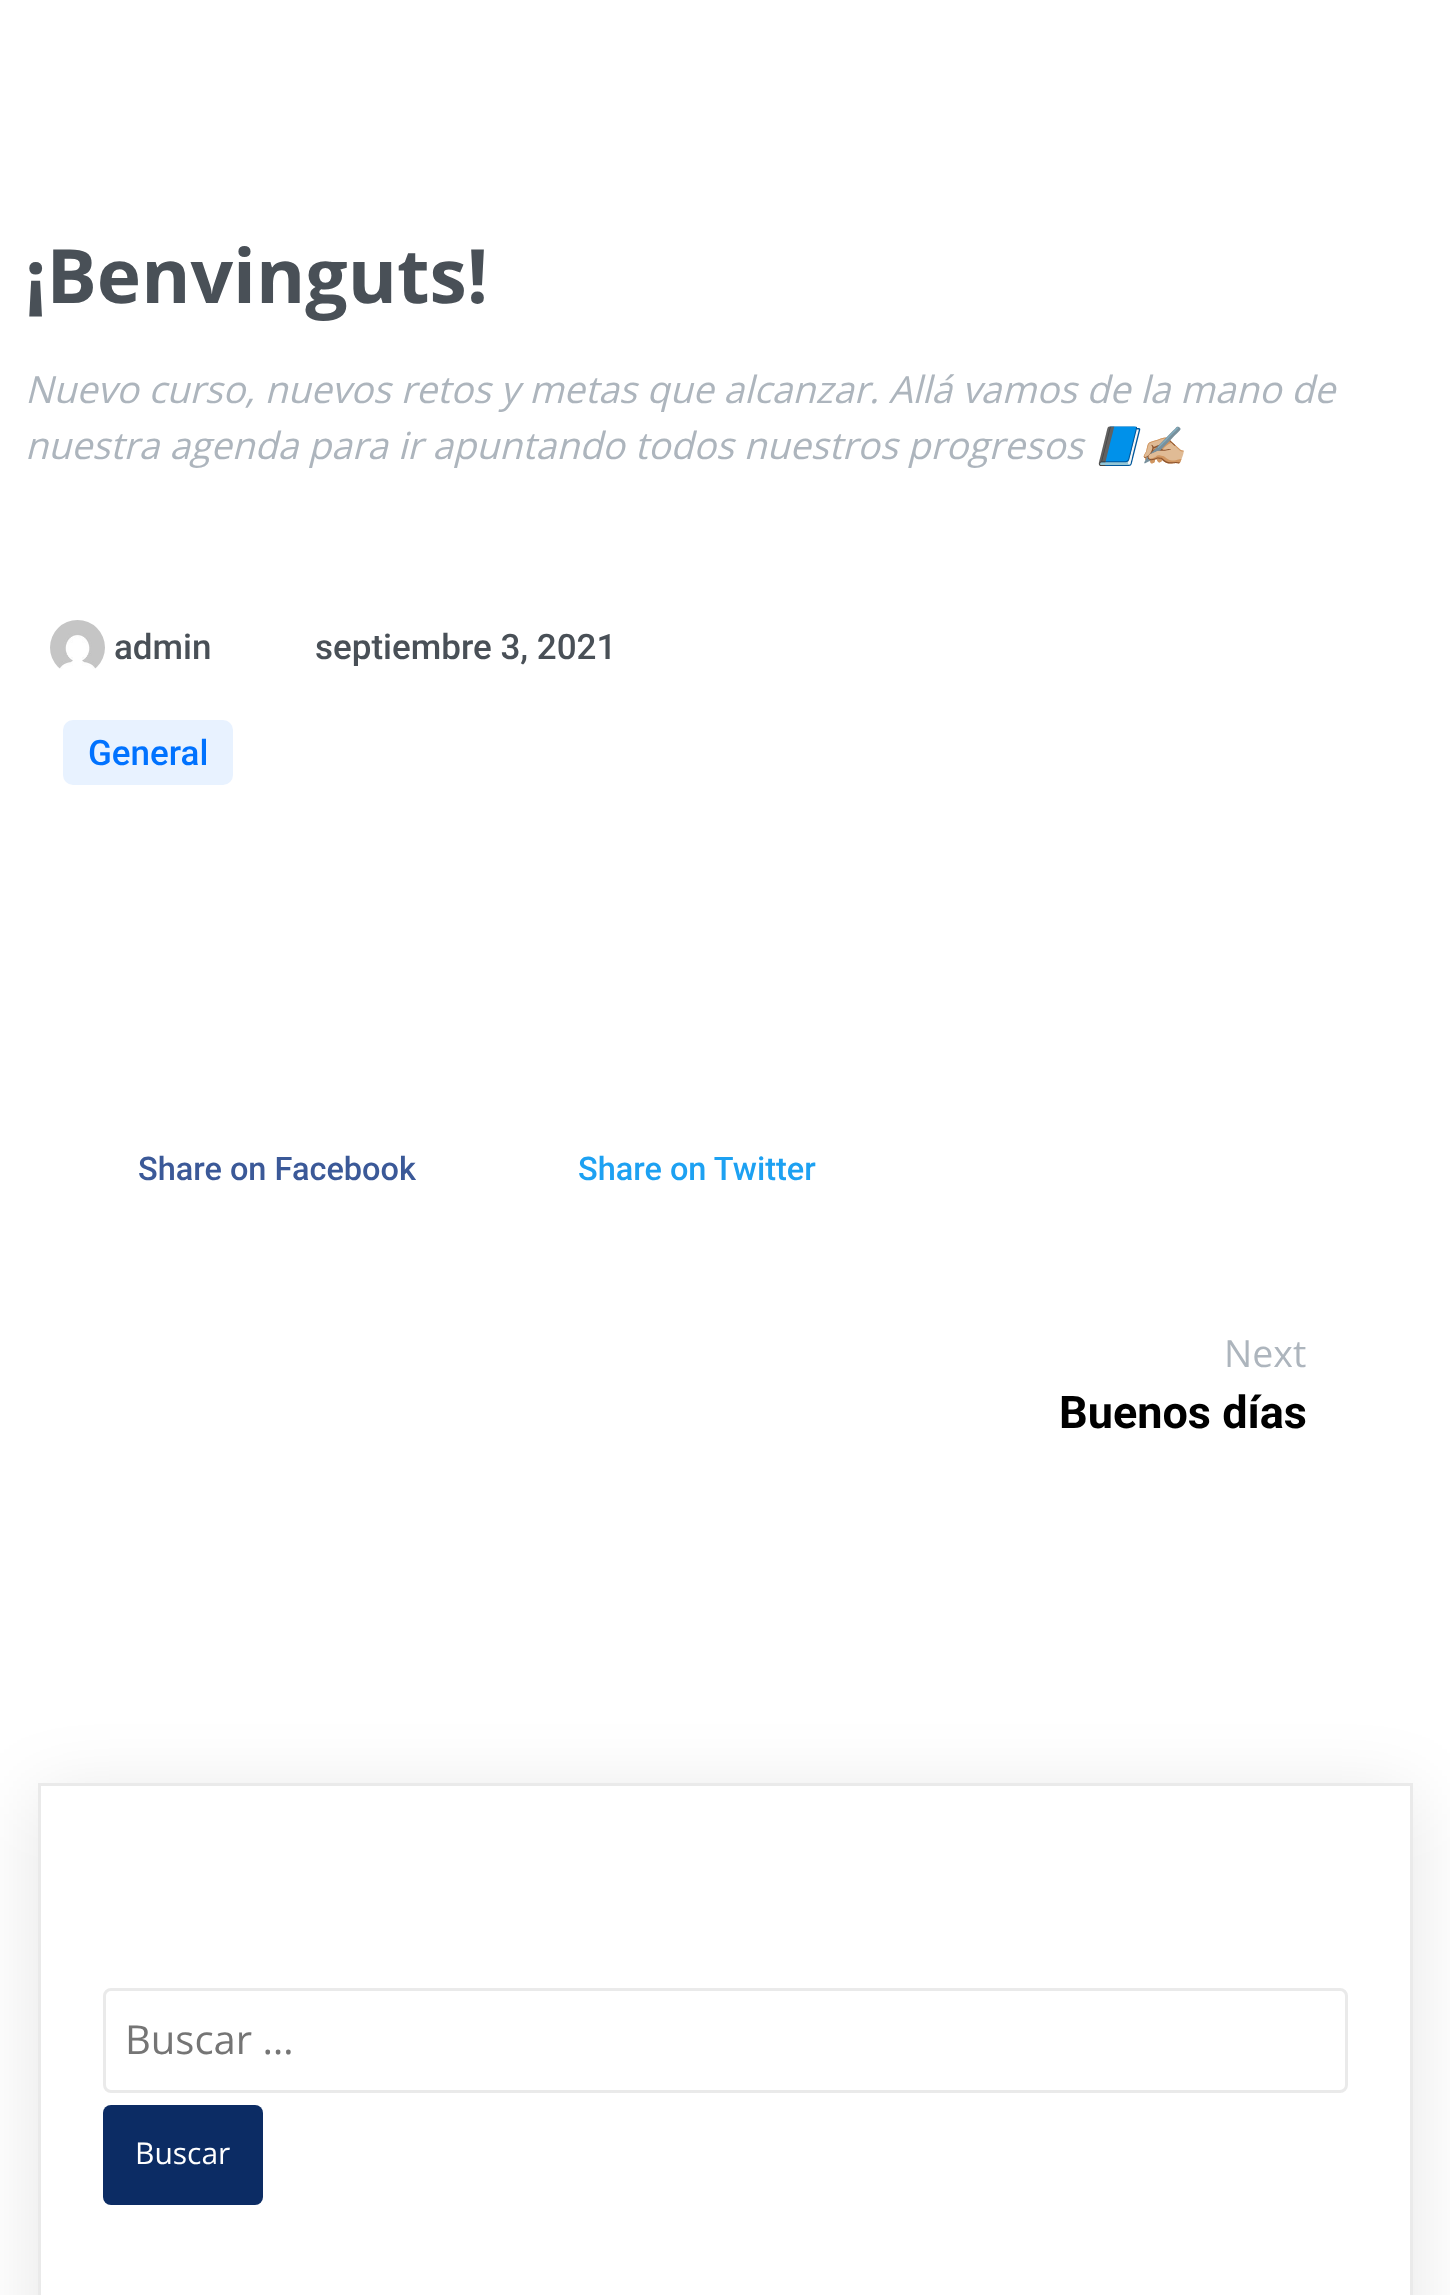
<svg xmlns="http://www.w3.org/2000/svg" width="1450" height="2295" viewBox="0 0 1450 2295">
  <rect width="100%" height="100%" fill="#fff"/>
  <image x="50" y="620" width="55" height="49" href="img/1.png"/>
  <rect x="63" y="720" width="170" height="65" rx="10" fill="#e8f2ff"/>
  <path d="M38 1795h1375v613H38z" fill="#0000001a" filter="blur(37.5px)"/>
  <path d="M39.5 1784.5h1372v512H39.5z" fill="#fff" stroke="#eaeaea" stroke-width="3"/>
  <rect x="104.5" y="1989.5" width="1242" height="102" rx="6.5" fill="none" stroke="#eaeaea" stroke-width="3"/>
  <rect x="103" y="2105" width="160" height="100" rx="8" fill="#0c2c64"/>
  <text x="25" y="303" font-family="Open Sans" font-size="75" font-weight="bold" fill="#495057">¡Benvinguts!</text>
  <g font-family="Open Sans" font-size="37.5" font-style="italic" fill="#adb5bd">
    <text x="25" y="403">Nuevo curso, nuevos retos y metas que alcanzar. Allá vamos de la mano de</text>
    <text x="25" y="459">nuestra agenda para ir apuntando todos nuestros progresos</text>
  </g>
  <text x="1093" y="459" font-family="Noto Color Emoji" font-size="37.5" font-style="italic" fill="#adb5bd">📘✍🏼</text>
  <g font-family="Roboto" font-size="35" font-weight="500" fill="#495057">
    <text x="114" y="659">admin</text>
    <text x="315" y="659">septiembre 3, 2021</text>
  </g>
  <text x="88" y="765" font-family="Roboto" font-size="35" font-weight="500" fill="#0072ff">General</text>
  <text x="138" y="1180" font-family="Roboto" font-size="32.5" font-weight="500" fill="#3b5998">Share on Facebook</text>
  <text x="578" y="1180" font-family="Roboto" font-size="32.5" font-weight="500" fill="#1da1f2">Share on Twitter</text>
  <text x="1224" y="1367" font-family="Open Sans" font-size="37.5" fill="#adb5bd">Next</text>
  <text x="1059" y="1428" font-family="Roboto" font-size="45" font-weight="bold" fill="#000">Buenos días</text>
  <text x="125" y="2054" font-family="Open Sans" font-size="40" fill="#757575">Buscar …</text>
  <text x="135" y="2164" font-family="Open Sans" font-size="30" fill="#fff">Buscar</text>
</svg>
